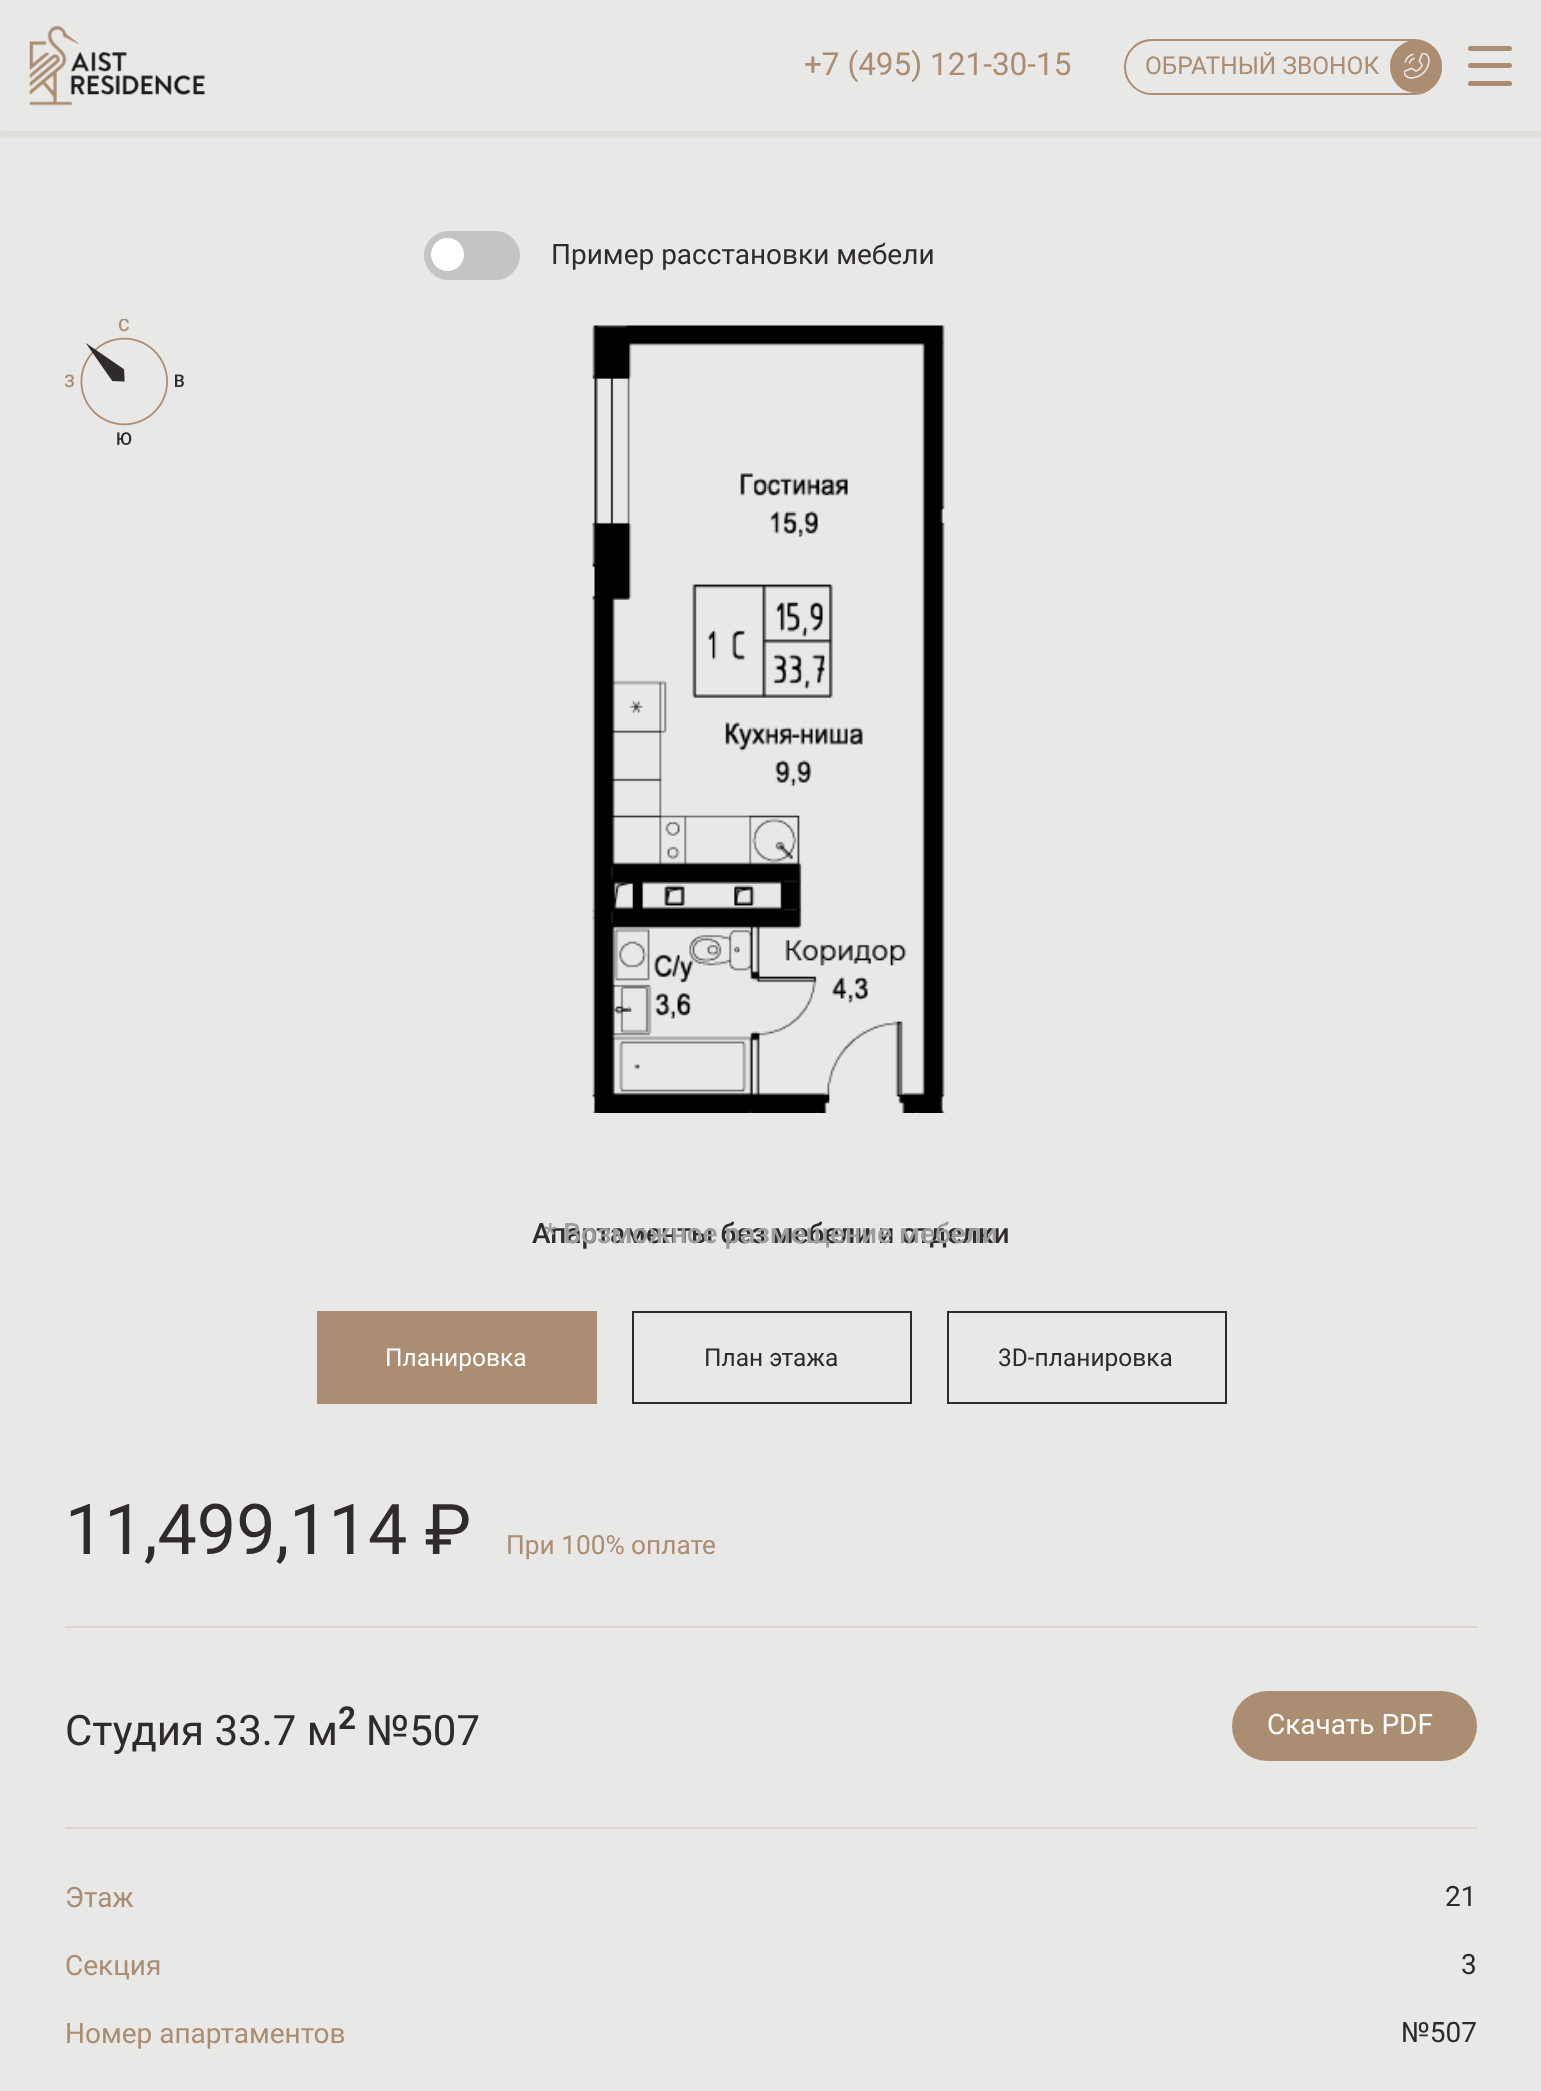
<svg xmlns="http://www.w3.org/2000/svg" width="1541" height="2091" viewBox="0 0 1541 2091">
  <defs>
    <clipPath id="clip1"><path d="M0 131h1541v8H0z"/></clipPath>
  </defs>
  <rect width="100%" height="100%" fill="#e8e8e7"/>
  <g clip-path="url(#clip1)">
    <path d="M0 5h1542v132H0z" fill="#deddda" filter="blur(1px)"/>
  </g>
  <image x="29" y="26" width="176" height="80" href="img/1.png"/>
  <rect x="1125" y="40" width="316" height="54" rx="27" fill="none" stroke="#ab8d71" stroke-width="2"/>
  <rect x="1390" y="40" width="52" height="53" rx="26" fill="#ab8d71"/>
  <image x="1404" y="53" width="26" height="26" href="img/2.png"/>
  <rect x="1468" y="81" width="44" height="5" rx="2.5" fill="#ab8d71"/>
  <rect x="1468" y="46" width="44" height="5" rx="2.5" fill="#ab8d71"/>
  <rect x="1468" y="63" width="44" height="5" rx="2.5" fill="#ab8d71"/>
  <image x="65" y="319" width="119" height="126" href="img/3.png"/>
  <rect x="424" y="231" width="96" height="49" rx="24.5" fill="#c4c4c4"/>
  <circle cx="447.5" cy="254.5" r="16.5" fill="#fff"/>
  <image x="592" y="325" width="353" height="788" href="img/4.png"/>
  <path d="M317 1311h280v93H317z" fill="#ab8d71"/>
  <path d="M633 1312h278v91H633z" fill="none" stroke="#2f2a2b" stroke-width="2"/>
  <path d="M948 1312h278v91H948z" fill="none" stroke="#2f2a2b" stroke-width="2"/>
  <path d="M65 1626h1412v2H65z" fill="#e0d2c6"/>
  <path d="M65 1827h1412v2H65z" fill="#e0d2c6"/>
  <rect x="1232" y="1691" width="245" height="70" rx="35" fill="#ab8d71"/>
  <text x="804" y="75" font-family="Roboto" font-size="31.5" fill="#ab8d71">+7 (495) 121-30-15</text>
  <text x="1145" y="74" font-family="Roboto" font-size="24.5" fill="#ab8d71">ОБРАТНЫЙ ЗВОНОК</text>
  <text x="551" y="264" font-family="Roboto" font-size="28" fill="#2f2a2b">Пример расстановки мебели</text>
  <text x="532" y="1243" font-family="Roboto" font-size="28" font-weight="500" fill="#2f2a2b">Апартаменты без мебели и отделки</text>
  <text x="544" y="1243" font-family="Roboto" font-size="28" font-weight="500" fill="#9d9d9c">* Возможное размещение мебели</text>
  <text x="385" y="1366" font-family="Roboto" font-size="24.5" fill="#fff">Планировка</text>
  <g font-family="Roboto" font-size="24.5" fill="#2f2a2b">
    <text x="704" y="1366">План этажа</text>
    <text x="998" y="1366">3D-планировка</text>
  </g>
  <text x="65" y="1554" font-family="Roboto" font-size="70" fill="#2f2a2b">11,499,114 ₽</text>
  <text x="506" y="1554" font-family="Roboto" font-size="26.25" fill="#ab8d71">При 100% оплате</text>
  <text x="65" y="1745" font-family="Roboto" font-size="42" fill="#2f2a2b">Студия 33.7 м</text>
  <text x="338" y="1729" font-family="Roboto" font-size="31.5" font-weight="bold" fill="#2f2a2b">2</text>
  <text x="366" y="1745" font-family="Roboto" font-size="42" fill="#2f2a2b">№507</text>
  <text x="1267" y="1734" font-family="Roboto" font-size="28" fill="#fff">Cкачать PDF</text>
  <text x="65" y="1907" font-family="Roboto" font-size="28" fill="#ab8d71">Этаж</text>
  <text x="1445" y="1906" font-family="Roboto" font-size="28" fill="#2f2a2b">21</text>
  <text x="65" y="1975" font-family="Roboto" font-size="28" fill="#ab8d71">Секция</text>
  <text x="1461" y="1974" font-family="Roboto" font-size="28" fill="#2f2a2b">3</text>
  <text x="65" y="2043" font-family="Roboto" font-size="28" fill="#ab8d71">Номер апартаментов</text>
  <text x="1401" y="2042" font-family="Roboto" font-size="28" fill="#2f2a2b">№507</text>
</svg>
